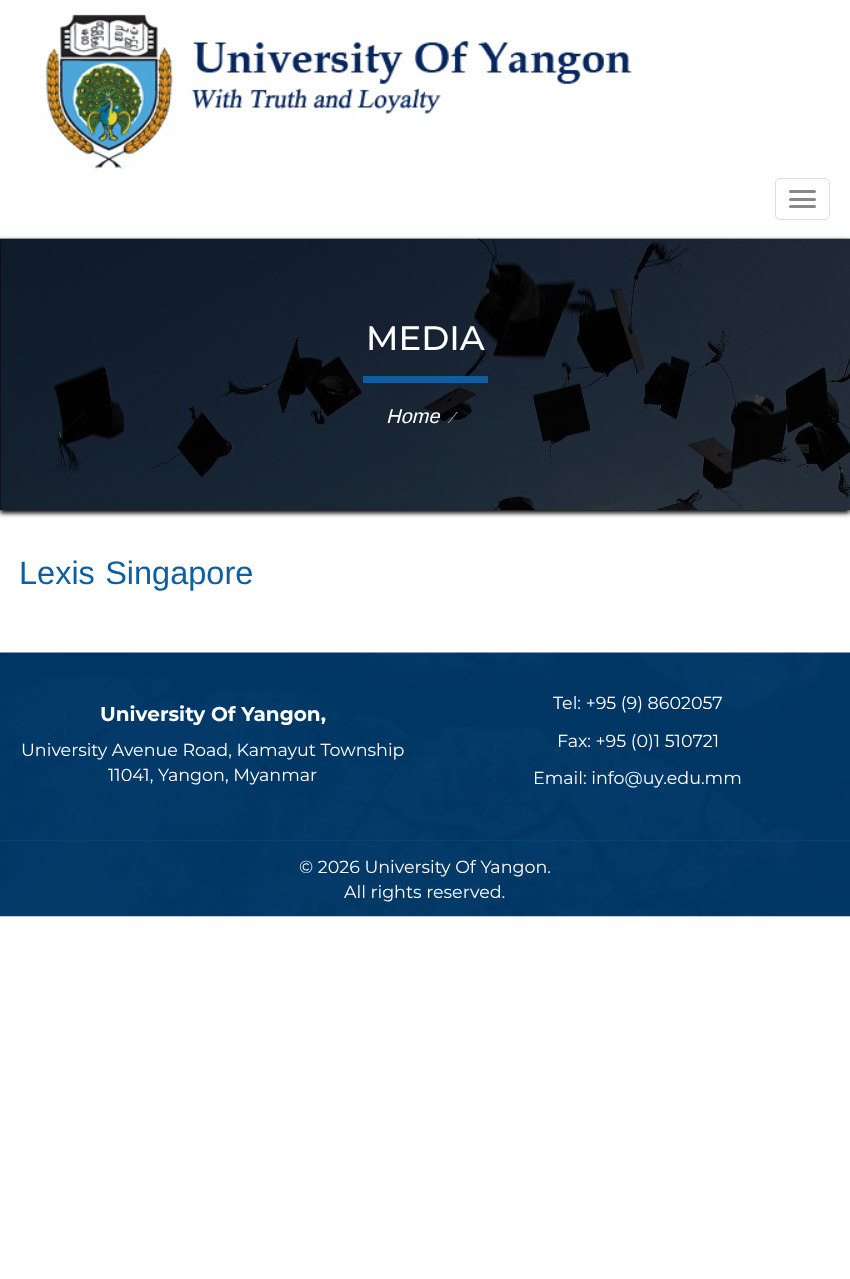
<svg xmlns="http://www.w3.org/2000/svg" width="850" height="1279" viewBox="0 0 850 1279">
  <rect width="100%" height="100%" fill="#fff"/>
  <image x="40" y="14" width="592" height="155" href="img/1.png"/>
  <rect x="775.5" y="178.5" width="54" height="41" rx="4.5" fill="none" stroke="#ddd"/>
  <rect x="789" y="190" width="27" height="3" rx="1.5" fill="#888"/>
  <rect x="789" y="198" width="27" height="3" rx="1.5" fill="#888"/>
  <rect x="789" y="205" width="27" height="3" rx="1.5" fill="#888"/>
  <path d="M0 241h850v272H0z" fill="#000" filter="blur(2.5px)"/>
  <image x="0" y="238" width="850" height="272" href="img/2.png"/>
  <path d="M363 376h125v7H363z" fill="#0e5fa2"/>
  <image x="0" y="652" width="850" height="265" href="img/3.png"/>
  <path d="M0 840h850v1H0z" fill="#054377"/>
  <text x="366" y="350" font-family="Montserrat" font-size="34" font-weight="500" fill="#fff">MEDIA</text>
  <text x="386" y="423" font-family="'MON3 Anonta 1'" font-size="20" font-style="italic" fill="#fff">Home</text>
  <text x="452" y="423" font-family="Liberation Sans" font-size="16" font-style="italic" fill="#999">⁄</text>
  <text x="19" y="584" font-family="'MON3 Anonta 1'" font-size="32.5" fill="#0e5fa2">Lexis Singapore</text>
  <text x="100" y="721" font-family="Montserrat" font-size="20" font-weight="bold" fill="#fff">University Of Yangon,</text>
  <g font-family="Montserrat" font-size="17.5" fill="#fff">
    <text x="21" y="756">University Avenue Road, Kamayut Township</text>
    <text x="108" y="781">11041, Yangon, Myanmar</text>
    <text x="553" y="709">Tel: +95 (9) 8602057</text>
    <text x="557" y="747">Fax: +95 (0)1 510721</text>
    <text x="533" y="784">Email: info@uy.edu.mm</text>
    <text x="299" y="873">© 2026 University Of Yangon.</text>
    <text x="344" y="898">All rights reserved.</text>
  </g>
</svg>
